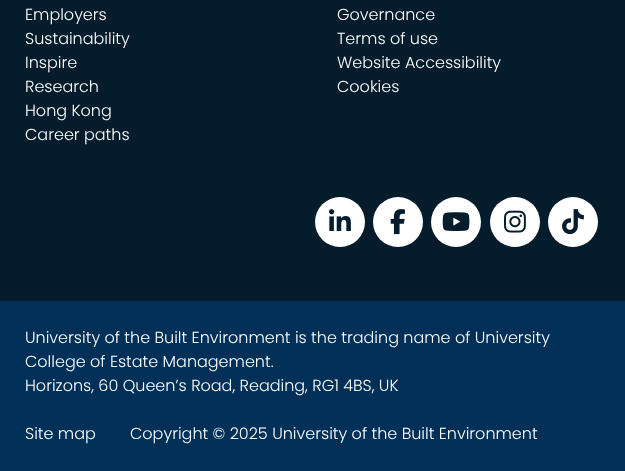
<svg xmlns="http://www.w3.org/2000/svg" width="625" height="471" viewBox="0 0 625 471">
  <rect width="100%" height="100%" fill="#051c2c"/>
  <circle cx="340" cy="222" r="25" fill="#fff"/>
  <image x="329" y="209" width="22" height="22" href="img/1.png"/>
  <circle cx="398" cy="222" r="25" fill="#fff"/>
  <image x="390" y="209" width="15" height="26" href="img/2.png"/>
  <circle cx="456" cy="222" r="25" fill="#fff"/>
  <image x="442" y="212" width="28" height="19" href="img/3.png"/>
  <circle cx="515" cy="222" r="25" fill="#fff"/>
  <image x="504" y="210" width="22" height="23" href="img/4.png"/>
  <circle cx="573" cy="222" r="25" fill="#fff"/>
  <image x="562" y="209" width="22" height="26" href="img/5.png"/>
  <path d="M0 301h625v170H0z" fill="#003057"/>
  <g font-family="Poppins" font-size="16" font-weight="300" fill="#fff">
    <text x="25" y="20">Employers</text>
    <text x="25" y="44">Sustainability</text>
    <text x="25" y="68">Inspire</text>
    <text x="25" y="92">Research</text>
    <text x="25" y="116">Hong Kong</text>
    <text x="25" y="140">Career paths</text>
    <text x="337" y="20">Governance</text>
    <text x="337" y="44">Terms of use</text>
    <text x="337" y="68">Website Accessibility</text>
    <text x="337" y="92">Cookies</text>
    <text x="25" y="343">University of the Built Environment is the trading name of University</text>
    <text x="25" y="367">College of Estate Management.</text>
    <text x="25" y="391">Horizons, 60 Queen’s Road, Reading, RG1 4BS, UK</text>
    <text x="25" y="439">Site map</text>
    <text x="130" y="439">Copyright © 2025 University of the Built Environment</text>
  </g>
</svg>
